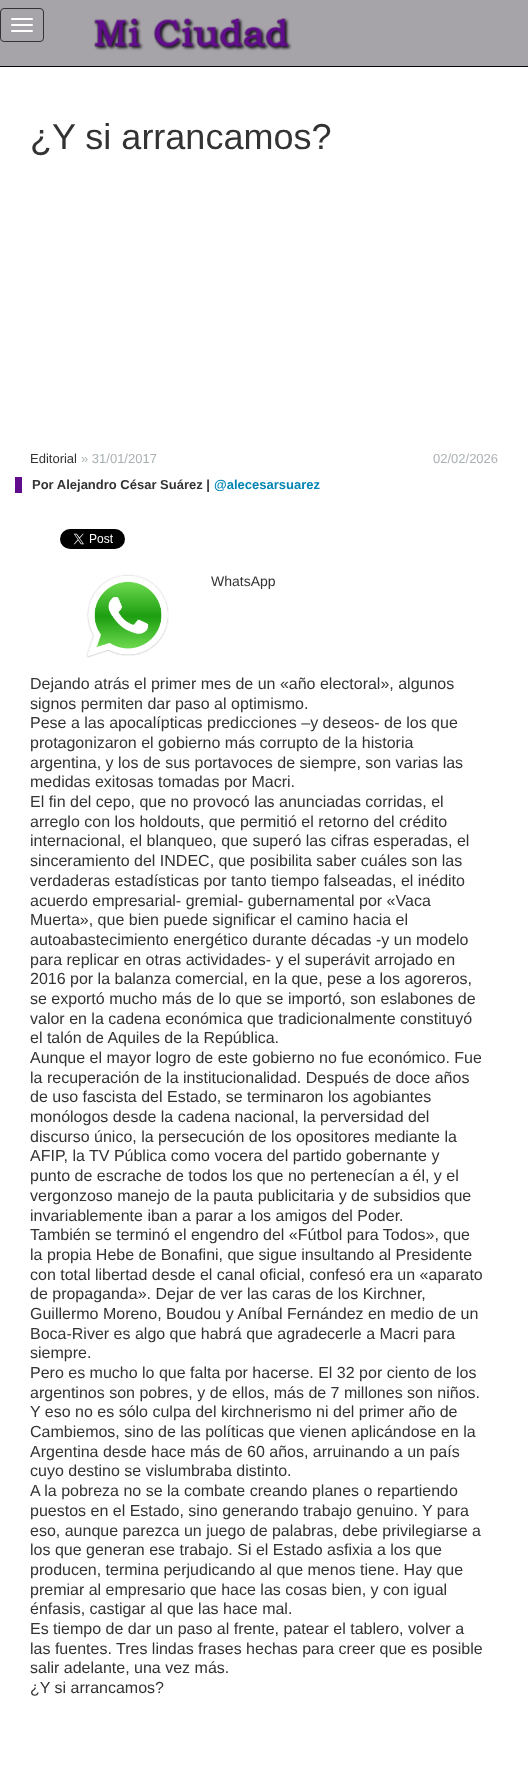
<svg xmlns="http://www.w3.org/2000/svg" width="528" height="1791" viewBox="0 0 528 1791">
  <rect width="100%" height="100%" fill="#fff"/>
  <path d="M0 0h528v66H0z" fill="#a7a4a9"/>
  <path d="M0 66h528v1H0z" fill="#080808"/>
  <rect x="0.5" y="8.5" width="43" height="33" rx="3.5" fill="none" stroke="#333"/>
  <rect x="11" y="18" width="22" height="2" rx="1" fill="#fff"/>
  <rect x="11" y="24" width="22" height="2" rx="1" fill="#fff"/>
  <rect x="11" y="30" width="22" height="2" rx="1" fill="#fff"/>
  <image x="94" y="17" width="198" height="34" href="img/1.png"/>
  <path d="M15 477h7v16H15z" fill="#610c8c"/>
  <image x="60" y="529" width="65" height="20" href="img/2.png"/>
  <image x="86" y="574" width="83" height="84" href="img/3.png"/>
  <text x="30" y="149" font-family="Liberation Sans" font-size="36" fill="#333">¿Y si arrancamos?</text>
  <text x="30" y="463" font-family="Liberation Sans" font-size="13" fill="#333">Editorial</text>
  <g font-family="Liberation Sans" font-size="13" fill="#aab1b3">
    <text x="81" y="463">» 31/01/2017</text>
    <text x="433" y="463">02/02/2026</text>
  </g>
  <text x="32" y="489" font-family="Liberation Sans" font-size="13" font-weight="bold" fill="#333">Por Alejandro César Suárez |</text>
  <text x="214" y="489" font-family="Liberation Sans" font-size="13" font-weight="bold" fill="#0084b4">@alecesarsuarez</text>
  <text x="211" y="586" font-family="Liberation Sans" font-size="14" fill="#333">WhatsApp</text>
  <g font-family="Liberation Sans" font-size="16" fill="#333">
    <text x="30" y="689">Dejando atrás el primer mes de un «año electoral», algunos</text>
    <text x="30" y="709">signos permiten dar paso al optimismo.</text>
    <text x="30" y="728">Pese a las apocalípticas predicciones –y deseos- de los que</text>
    <text x="30" y="748">protagonizaron el gobierno más corrupto de la historia</text>
    <text x="30" y="768">argentina, y los de sus portavoces de siempre, son varias las</text>
    <text x="30" y="787">medidas exitosas tomadas por Macri.</text>
    <text x="30" y="807">El fin del cepo, que no provocó las anunciadas corridas, el</text>
    <text x="30" y="827">arreglo con los holdouts, que permitió el retorno del crédito</text>
    <text x="30" y="846">internacional, el blanqueo, que superó las cifras esperadas, el</text>
    <text x="30" y="866">sinceramiento del INDEC, que posibilita saber cuáles son las</text>
    <text x="30" y="886">verdaderas estadísticas por tanto tiempo falseadas, el inédito</text>
    <text x="30" y="906">acuerdo empresarial- gremial- gubernamental por «Vaca</text>
    <text x="30" y="925">Muerta», que bien puede significar el camino hacia el</text>
    <text x="30" y="945">autoabastecimiento energético durante décadas -y un modelo</text>
    <text x="30" y="965">para replicar en otras actividades- y el superávit arrojado en</text>
    <text x="30" y="984">2016 por la balanza comercial, en la que, pese a los agoreros,</text>
    <text x="30" y="1004">se exportó mucho más de lo que se importó, son eslabones de</text>
    <text x="30" y="1024">valor en la cadena económica que tradicionalmente constituyó</text>
    <text x="30" y="1043">el talón de Aquiles de la República.</text>
    <text x="30" y="1063">Aunque el mayor logro de este gobierno no fue económico. Fue</text>
    <text x="30" y="1083">la recuperación de la institucionalidad. Después de doce años</text>
    <text x="30" y="1102">de uso fascista del Estado, se terminaron los agobiantes</text>
    <text x="30" y="1122">monólogos desde la cadena nacional, la perversidad del</text>
    <text x="30" y="1142">discurso único, la persecución de los opositores mediante la</text>
    <text x="30" y="1161">AFIP, la TV Pública como vocera del partido gobernante y</text>
    <text x="30" y="1181">punto de escrache de todos los que no pertenecían a él, y el</text>
    <text x="30" y="1201">vergonzoso manejo de la pauta publicitaria y de subsidios que</text>
    <text x="30" y="1221">invariablemente iban a parar a los amigos del Poder.</text>
    <text x="30" y="1240">También se terminó el engendro del «Fútbol para Todos», que</text>
    <text x="30" y="1260">la propia Hebe de Bonafini, que sigue insultando al Presidente</text>
    <text x="30" y="1280">con total libertad desde el canal oficial, confesó era un «aparato</text>
    <text x="30" y="1299">de propaganda». Dejar de ver las caras de los Kirchner,</text>
    <text x="30" y="1319">Guillermo Moreno, Boudou y Aníbal Fernández en medio de un</text>
    <text x="30" y="1339">Boca-River es algo que habrá que agradecerle a Macri para</text>
    <text x="30" y="1358">siempre.</text>
    <text x="30" y="1378">Pero es mucho lo que falta por hacerse. El 32 por ciento de los</text>
    <text x="30" y="1398">argentinos son pobres, y de ellos, más de 7 millones son niños.</text>
    <text x="30" y="1417">Y eso no es sólo culpa del kirchnerismo ni del primer año de</text>
    <text x="30" y="1437">Cambiemos, sino de las políticas que vienen aplicándose en la</text>
    <text x="30" y="1457">Argentina desde hace más de 60 años, arruinando a un país</text>
    <text x="30" y="1476">cuyo destino se vislumbraba distinto.</text>
    <text x="30" y="1496">A la pobreza no se la combate creando planes o repartiendo</text>
    <text x="30" y="1516">puestos en el Estado, sino generando trabajo genuino. Y para</text>
    <text x="30" y="1536">eso, aunque parezca un juego de palabras, debe privilegiarse a</text>
    <text x="30" y="1555">los que generan ese trabajo. Si el Estado asfixia a los que</text>
    <text x="30" y="1575">producen, termina perjudicando al que menos tiene. Hay que</text>
    <text x="30" y="1595">premiar al empresario que hace las cosas bien, y con igual</text>
    <text x="30" y="1614">énfasis, castigar al que las hace mal.</text>
    <text x="30" y="1634">Es tiempo de dar un paso al frente, patear el tablero, volver a</text>
    <text x="30" y="1654">las fuentes. Tres lindas frases hechas para creer que es posible</text>
    <text x="30" y="1673">salir adelante, una vez más.</text>
    <text x="30" y="1693">¿Y si arrancamos?</text>
  </g>
</svg>
